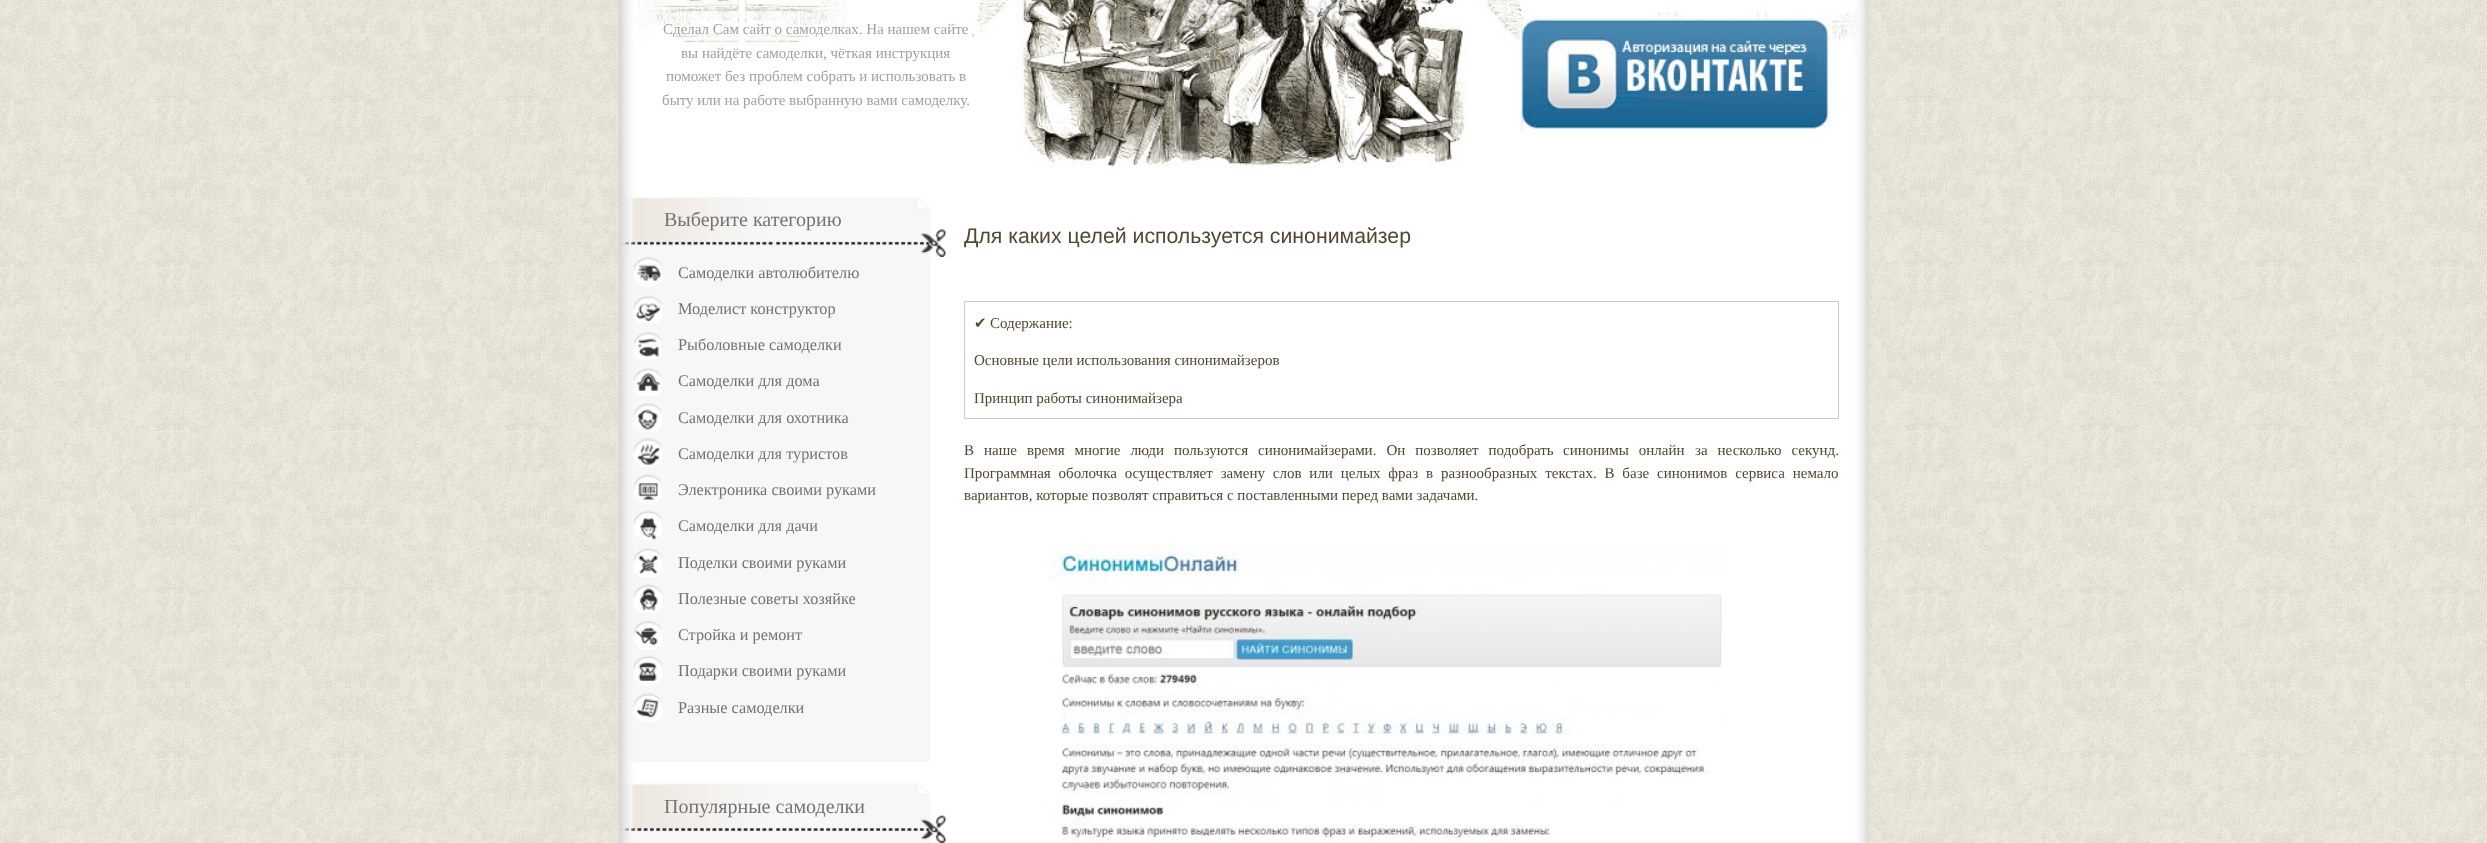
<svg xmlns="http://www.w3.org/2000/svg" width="2487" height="843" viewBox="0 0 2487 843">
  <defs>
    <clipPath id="clip1"><path d="M964 218h875v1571H964z"/></clipPath>
  </defs>
  <rect width="100%" height="100%" fill="#fff"/>
  <image x="0" y="0" width="2487" height="843" href="img/1.png"/>
  <image x="618" y="0" width="1251" height="843" href="img/2.png"/>
  <image x="618" y="0" width="1241" height="182" href="img/3.png"/>
  <image x="686" y="0" width="47" height="6" href="img/4.png"/>
  <image x="1520" y="18" width="313" height="114" href="img/5.png"/>
  <image x="620" y="197" width="327" height="60" href="img/6.png"/>
  <image x="629" y="257" width="301" height="505" href="img/7.png"/>
  <image x="633" y="257" width="30" height="30" href="img/8.png"/>
  <image x="633" y="295" width="30" height="28" href="img/9.png"/>
  <image x="633" y="332" width="30" height="28" href="img/10.png"/>
  <image x="633" y="368" width="30" height="28" href="img/11.png"/>
  <image x="633" y="403" width="30" height="29" href="img/12.png"/>
  <image x="633" y="438" width="30" height="30" href="img/13.png"/>
  <image x="633" y="474" width="30" height="30" href="img/14.png"/>
  <image x="633" y="510" width="30" height="31" href="img/15.png"/>
  <image x="633" y="548" width="30" height="29" href="img/16.png"/>
  <image x="633" y="584" width="30" height="29" href="img/17.png"/>
  <image x="633" y="620" width="30" height="30" href="img/18.png"/>
  <image x="633" y="655" width="30" height="31" href="img/19.png"/>
  <image x="633" y="693" width="30" height="29" href="img/20.png"/>
  <image x="620" y="783" width="327" height="60" href="img/21.png"/>
  <path d="M964.5 301.5h874v117H964.5z" fill="none" stroke="#cacaca"/>
  <image x="1050" y="544" width="672" height="299" href="img/22.png"/>
  <g font-family="Liberation Serif" font-size="15" fill="#a1a1a1">
    <text x="663" y="34">Сделал Сам сайт о самоделках. На нашем сайте</text>
    <text x="681" y="58">вы найдёте самоделки, чёткая инструкция</text>
    <text x="666" y="81">поможет без проблем собрать и использовать в</text>
    <text x="662" y="105">быту или на работе выбранную вами самоделку.</text>
  </g>
  <text x="664" y="226" font-family="Liberation Serif" font-size="20" fill="#737373">Выберите категорию</text>
  <g font-family="Liberation Serif" font-size="16.25" fill="#737373">
    <text x="678" y="278">Самоделки автолюбителю</text>
    <text x="678" y="314">Моделист конструктор</text>
    <text x="678" y="350">Рыболовные самоделки</text>
    <text x="678" y="386">Самоделки для дома</text>
    <text x="678" y="423">Самоделки для охотника</text>
    <text x="678" y="459">Самоделки для туристов</text>
    <text x="678" y="495">Электроника своими руками</text>
    <text x="678" y="531">Самоделки для дачи</text>
    <text x="678" y="568">Поделки своими руками</text>
    <text x="678" y="604">Полезные советы хозяйке</text>
    <text x="678" y="640">Стройка и ремонт</text>
    <text x="678" y="676">Подарки своими руками</text>
    <text x="678" y="713">Разные самоделки</text>
  </g>
  <text x="664" y="813" font-family="Liberation Serif" font-size="20" fill="#737373">Популярные самоделки</text>
  <g clip-path="url(#clip1)">
    <text x="964" y="243" font-family="Liberation Sans" font-size="21.25" fill="#534733">Для каких целей используется синонимайзер</text>
  </g>
  <text x="974" y="328" font-family="DejaVu Sans" font-size="15" fill="#534733">✔</text>
  <g font-family="Liberation Serif" font-size="15" fill="#534733">
    <text x="990" y="328">Содержание:</text>
    <text x="974" y="365">Основные цели использования синонимайзеров</text>
    <text x="974" y="403">Принцип работы синонимайзера</text>
    <text x="964" y="455" word-spacing="6.25">В наше время многие люди пользуются синонимайзерами. Он позволяет подобрать</text>
    <text x="1563" y="455" word-spacing="6.25">синонимы онлайн</text>
    <text x="1695" y="455" word-spacing="6.25">за несколько секунд.</text>
    <text x="964" y="478" word-spacing="4.1">Программная оболочка осуществляет замену слов или целых фраз в разнообразных текстах. В базе синонимов сервиса немало</text>
    <text x="964" y="500">вариантов, которые позволят справиться с поставленными перед вами задачами.</text>
  </g>
</svg>
